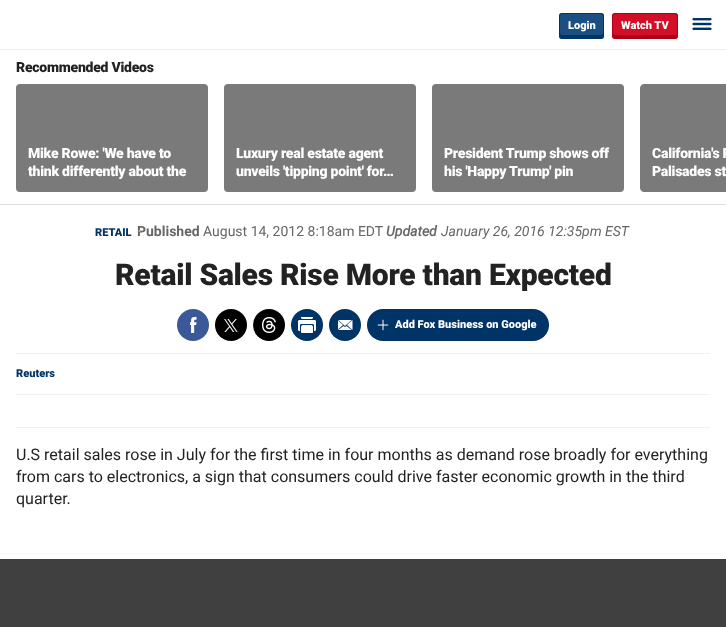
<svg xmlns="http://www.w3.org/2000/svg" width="726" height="627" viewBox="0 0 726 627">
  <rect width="100%" height="100%" fill="#fff"/>
  <path d="M0 49h726v1H0z" fill="#eff2f5"/>
  <rect x="559" y="13" width="45" height="26" rx="3" fill="#1b4e81"/>
  <path d="M560 33C560 40 561 38 568 38H594C602 38 603 40 603 33C603 34 602 35 601 35H562C561 35 560 34 560 33Z" fill="#036"/>
  <rect x="559.5" y="13.5" width="44" height="25" rx="2.5" fill="none" stroke="#036"/>
  <rect x="612" y="13" width="66" height="26" rx="3" fill="#d20f26"/>
  <path d="M613 30C613 40 612 38 625 38H665C673 38 677 41 677 34L676 35C676 35 615 36 614 35C613 34 613 31 613 30Z" fill="#ae0015"/>
  <rect x="612.5" y="13.5" width="65" height="25" rx="2.5" fill="none" stroke="#ae0015"/>
  <image x="692" y="18" width="20" height="12" href="img/1.png"/>
  <path d="M0 204h726v1H0z" fill="#ddd"/>
  <rect x="16" y="84" width="192" height="108" rx="4" fill="#f4f4f4"/>
  <rect x="16" y="84" width="192" height="108" rx="4" fill="#00000080"/>
  <rect x="224" y="84" width="192" height="108" rx="4" fill="#f4f4f4"/>
  <rect x="224" y="84" width="192" height="108" rx="4" fill="#00000080"/>
  <rect x="432" y="84" width="192" height="108" rx="4" fill="#f4f4f4"/>
  <rect x="432" y="84" width="192" height="108" rx="4" fill="#00000080"/>
  <path d="M644 84H726V192H644C642 192 640 190 640 188V88C640 86 642 84 644 84Z" fill="#f4f4f4"/>
  <path d="M644 84H726V192H644C642 192 640 190 640 188V88C640 86 642 84 644 84Z" fill="#00000080"/>
  <path d="M16 394h694v1H16z" fill="#eff2f5"/>
  <circle cx="193" cy="325" r="16" fill="#3b5998"/>
  <image x="190" y="317" width="7" height="16" href="img/2.png"/>
  <circle cx="231" cy="325" r="16" fill="#000"/>
  <image x="224" y="319" width="14" height="13" href="img/3.png"/>
  <circle cx="269" cy="325" r="16" fill="#000"/>
  <image x="262" y="317" width="14" height="16" href="img/4.png"/>
  <circle cx="307" cy="325" r="16" fill="#036"/>
  <image x="298" y="317" width="18" height="16" href="img/5.png"/>
  <circle cx="345" cy="325" r="16" fill="#036"/>
  <image x="338" y="320" width="15" height="10" href="img/6.png"/>
  <rect x="367" y="309" width="182" height="32" rx="16" fill="#036"/>
  <image x="377" y="319" width="12" height="12" href="img/7.png"/>
  <path d="M16 353h694v1H16z" fill="#eff2f5"/>
  <path d="M16 427h694v1H16z" fill="#eff2f5"/>
  <path d="M0 559h726v68H0z" fill="#404040"/>
  <g font-family="Roboto" font-size="11" font-weight="900" fill="#fff">
    <text x="568" y="29">Login</text>
    <text x="621" y="29">Watch TV</text>
  </g>
  <text x="16" y="72" font-family="Roboto" font-size="14" font-weight="900" letter-spacing="-0.25" fill="#222">Recommended Videos</text>
  <g font-family="Roboto" font-size="14" font-weight="900" letter-spacing="-0.25" fill="#fff">
    <text x="28" y="158">Mike Rowe: 'We have to</text>
    <text x="28" y="176">think differently about the</text>
    <text x="236" y="158">Luxury real estate agent</text>
    <text x="236" y="176">unveils 'tipping point' for…</text>
    <text x="444" y="158">President Trump shows off</text>
    <text x="444" y="176">his 'Happy Trump' pin</text>
    <text x="652" y="158">California's P</text>
    <text x="652" y="176">Palisades st</text>
  </g>
  <text x="95" y="236" font-family="Roboto" font-size="11" font-weight="900" fill="#036">RETAIL</text>
  <text x="137" y="236" font-family="Roboto" font-size="14" font-weight="bold" fill="#666">Published</text>
  <text x="203" y="236" font-family="Roboto" font-size="14" fill="#666">August 14, 2012 8:18am EDT</text>
  <text x="386" y="236" font-family="Roboto" font-size="14" font-weight="bold" font-style="italic" fill="#666">Updated</text>
  <text x="441" y="236" font-family="Roboto" font-size="14" font-style="italic" fill="#666">January 26, 2016 12:35pm EST</text>
  <text x="137" y="238" font-family="Roboto" font-size="20" fill="#a0a0a0">·</text>
  <text x="115" y="285" font-family="Roboto" font-size="30" font-weight="900" letter-spacing="-0.25" fill="#222">Retail Sales Rise More than Expected</text>
  <text x="395" y="328" font-family="Roboto" font-size="11" font-weight="900" fill="#fff">Add Fox Business on Google</text>
  <text x="16" y="377" font-family="Roboto" font-size="11" font-weight="900" fill="#036">Reuters</text>
  <g font-family="Roboto" font-size="16" fill="#222">
    <text x="16" y="460">U.S retail sales rose in July for the first time in four months as demand rose broadly for everything</text>
    <text x="16" y="482">from cars to electronics, a sign that consumers could drive faster economic growth in the third</text>
    <text x="16" y="504">quarter.</text>
  </g>
</svg>
